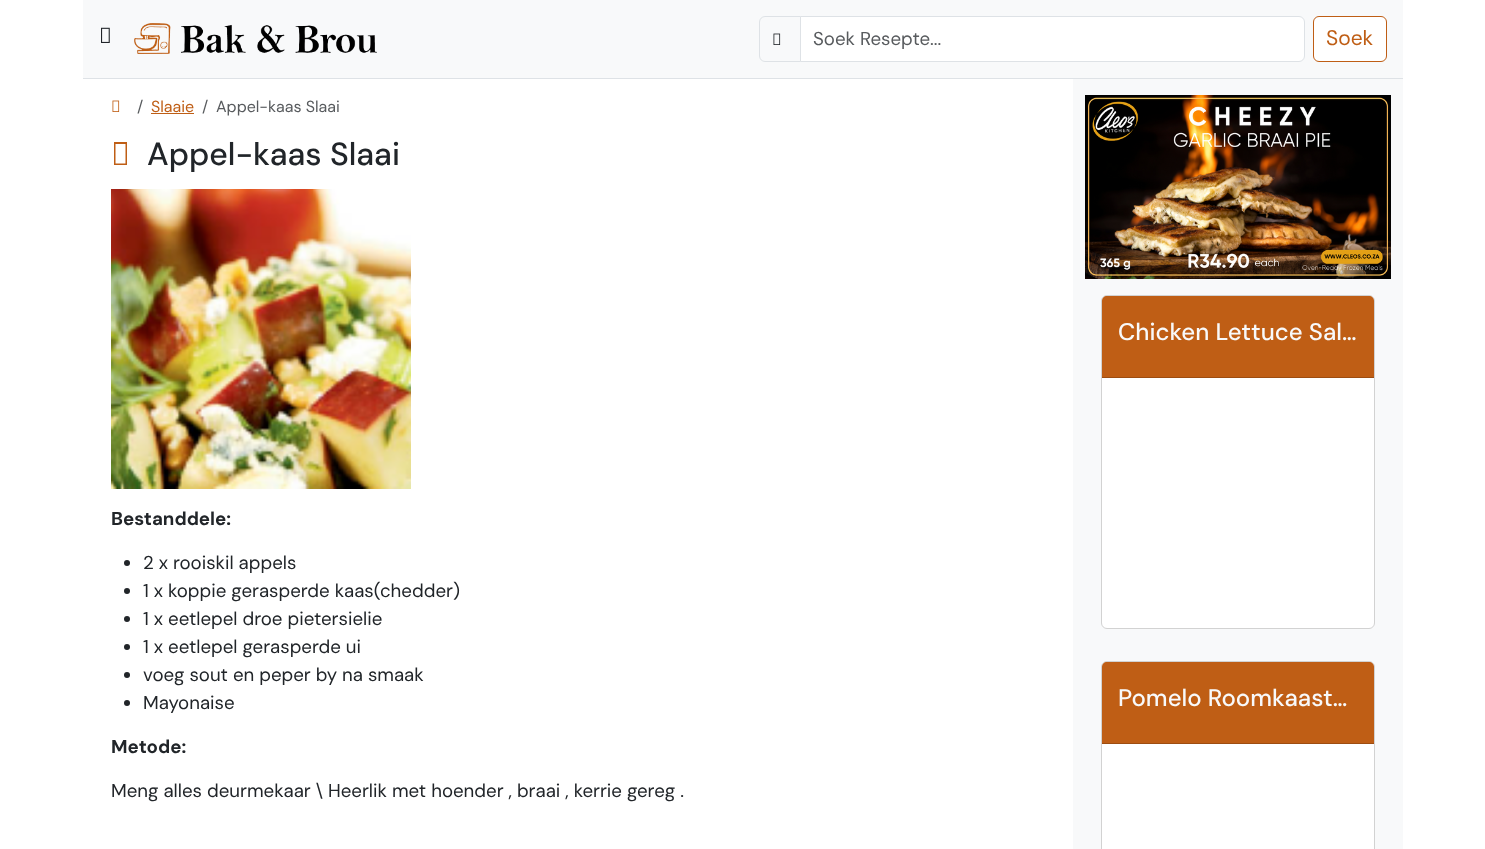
<svg xmlns="http://www.w3.org/2000/svg" width="1485" height="849" viewBox="0 0 1485 849">
  <rect width="100%" height="100%" fill="#fff"/>
  <path d="M83 0h1320v78H83z" fill="#f8f9fa"/>
  <path d="M83 78h1320v1H83z" fill="#dee2e6"/>
  <image x="101" y="27" width="9" height="16" href="img/1.png"/>
  <image x="134" y="23" width="243" height="31" href="img/2.png"/>
  <path d="M765 16.5H800.5V61.5H765C762 61.5 759.5 59 759.5 56V22C759.5 19 762 16.5 765 16.5Z" fill="none" stroke="#dee2e6"/>
  <image x="773" y="33" width="8" height="12" href="img/3.png"/>
  <path d="M800.5 16.5H1299C1302 16.5 1304.5 19 1304.5 22V56C1304.5 59 1302 61.5 1299 61.5H800.5Z" fill="#fff" stroke="#dee2e6"/>
  <rect x="1313.5" y="16.5" width="73" height="45" rx="5.5" fill="#fff" stroke="#bf5e15"/>
  <image x="112" y="100" width="8" height="12" href="img/4.png"/>
  <path d="M151 113h43v1H151z" fill="#bf5e15"/>
  <path d="M114 165V142H127V165ZM115.5 163.5H125.5V144H115.5Z" fill="#bf5e15"/>
  <image x="111" y="189" width="300" height="300" href="img/5.png"/>
  <circle cx="127" cy="563" r="3" fill="#212529"/>
  <circle cx="127" cy="591" r="3" fill="#212529"/>
  <circle cx="127" cy="619" r="3" fill="#212529"/>
  <circle cx="127" cy="647" r="3" fill="#212529"/>
  <circle cx="127" cy="675" r="3" fill="#212529"/>
  <circle cx="127" cy="703" r="3" fill="#212529"/>
  <path d="M1073 79h330v770H1073z" fill="#f8f9fa"/>
  <image x="1085" y="95" width="306" height="184" href="img/6.png"/>
  <rect x="1101.5" y="295.5" width="273" height="333" rx="5.5" fill="#fff" stroke="#d2d2d2"/>
  <path d="M1107 296H1369C1372 296 1374 298 1374 301V378H1102V301C1102 298 1104 296 1107 296Z" fill="#bf5e15"/>
  <path d="M1102 377h272v1H1102z" fill="#9d4d11"/>
  <rect x="1101.5" y="661.5" width="273" height="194" rx="5.5" fill="#fff" stroke="#d2d2d2"/>
  <path d="M1107 662H1369C1372 662 1374 664 1374 667V744H1102V667C1102 664 1104 662 1107 662Z" fill="#bf5e15"/>
  <path d="M1102 743h272v1H1102z" fill="#9d4d11"/>
  <text x="813" y="45" font-family="DM Sans" font-size="18.7" fill="#585b5e">Soek Resepte...</text>
  <text x="1326" y="45" font-family="DM Sans" font-size="21" fill="#bf5e15">Soek</text>
  <text x="137" y="112" font-family="DM Sans" font-size="16" fill="#585b5e">/</text>
  <text x="151" y="112" font-family="DM Sans" font-size="16" fill="#bf5e15">Slaaie</text>
  <g font-family="DM Sans" font-size="16" fill="#585b5e">
    <text x="202" y="112">/</text>
    <text x="216" y="112">Appel-kaas Slaai</text>
  </g>
  <text x="147" y="165" font-family="DM Sans" font-size="32" font-weight="500" fill="#212529">Appel-kaas Slaai</text>
  <text x="111" y="525" font-family="DM Sans" font-size="18.7" font-weight="bold" fill="#212529">Bestanddele:</text>
  <g font-family="DM Sans" font-size="18.7" fill="#212529">
    <text x="143" y="569">2 x rooiskil appels</text>
    <text x="143" y="597">1 x koppie gerasperde kaas(chedder)</text>
    <text x="143" y="625">1 x eetlepel droe pietersielie</text>
    <text x="143" y="653">1 x eetlepel gerasperde ui</text>
    <text x="143" y="681">voeg sout en peper by na smaak</text>
    <text x="143" y="709">Mayonaise</text>
  </g>
  <text x="111" y="753" font-family="DM Sans" font-size="18.7" font-weight="bold" fill="#212529">Metode:</text>
  <text x="111" y="797" font-family="DM Sans" font-size="18.7" fill="#212529">Meng alles deurmekaar \ Heerlik met hoender , braai , kerrie gereg .</text>
  <g font-family="DM Sans" font-size="24" font-weight="500" fill="#f8f9fa">
    <text x="1118" y="340">Chicken Lettuce Sal…</text>
    <text x="1118" y="706">Pomelo Roomkaast…</text>
  </g>
</svg>
